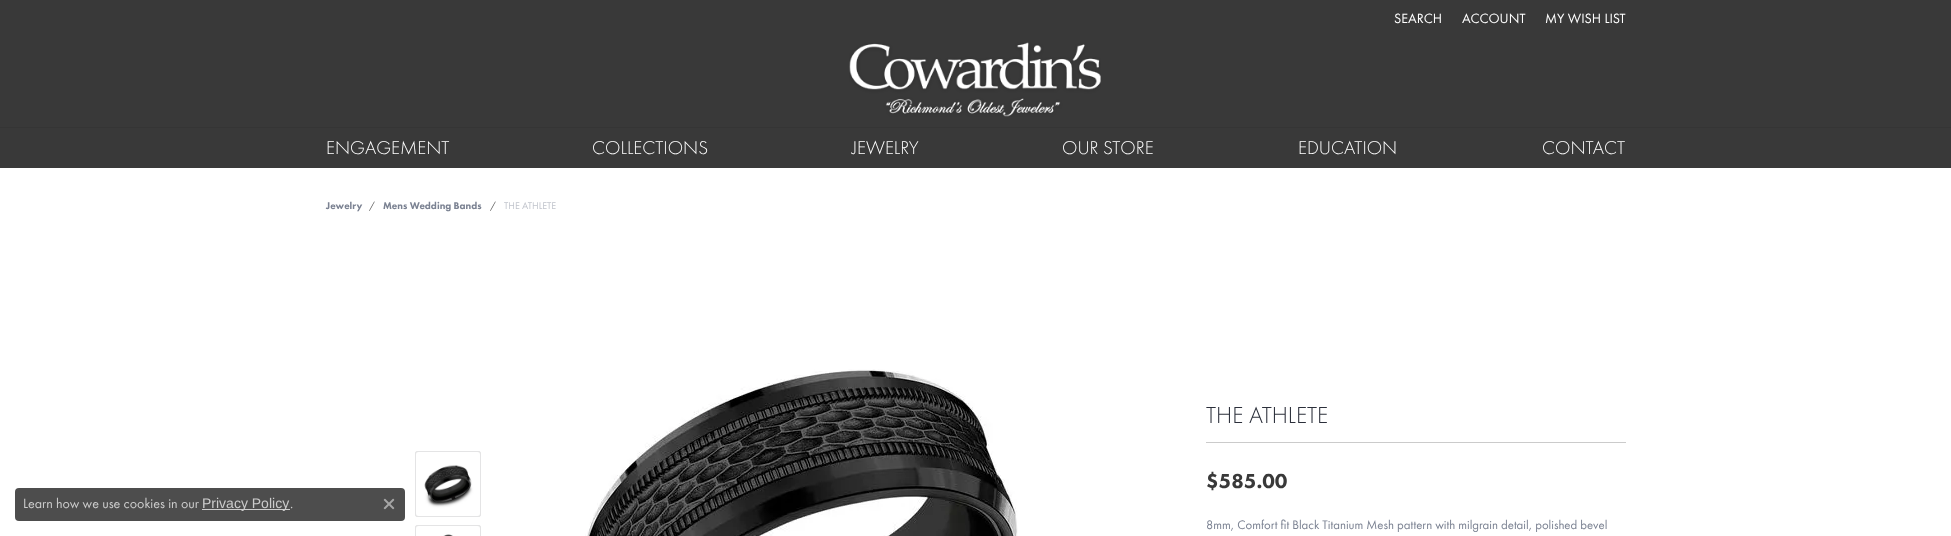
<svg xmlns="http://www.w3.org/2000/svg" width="1951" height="536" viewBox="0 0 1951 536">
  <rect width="100%" height="100%" fill="#393939"/>
  <image x="849" y="42" width="252" height="75" href="img/1.png"/>
  <path d="M0 127h1951v1H0z" fill="#353535"/>
  <path d="M0 168h1951v368H0z" fill="#fff"/>
  <rect x="15" y="488" width="390" height="33" rx="4" fill="#4d4d4d"/>
  <path d="M202 509h88v1H202z" fill="#ccc"/>
  <image x="383" y="498" width="12" height="12" href="img/2.png"/>
  <rect x="415.5" y="451.5" width="65" height="65" rx="1.5" fill="#ececec" stroke="#e4e4e5"/>
  <image x="416" y="452" width="64" height="64" href="img/3.png"/>
  <rect x="415.5" y="525.5" width="65" height="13" rx="1.5" fill="#ececec" stroke="#e4e4e5"/>
  <image x="416" y="526" width="64" height="10" href="img/4.png"/>
  <image x="585" y="369" width="433" height="167" href="img/5.png"/>
  <path d="M1206 442h420v1H1206z" fill="#cbcbcb"/>
  <g font-family="Futura PT" font-size="14" fill="#fff">
    <text x="1394" y="23">SEARCH</text>
    <text x="1462" y="23">ACCOUNT</text>
    <text x="1545" y="23">MY WISH LIST</text>
  </g>
  <g font-family="Futura PT" font-size="19.25" font-weight="300" fill="#fff">
    <text x="326" y="154">ENGAGEMENT</text>
    <text x="592" y="154">COLLECTIONS</text>
    <text x="852" y="154">JEWELRY</text>
    <text x="1062" y="154">OUR STORE</text>
    <text x="1298" y="154">EDUCATION</text>
    <text x="1542" y="154">CONTACT</text>
  </g>
  <text x="23" y="508" font-family="Futura PT" font-size="14" fill="#ccc">Learn how we use cookies in our</text>
  <text x="202" y="508" font-family="Liberation Sans" font-size="14" fill="#ccc">Privacy Policy</text>
  <text x="290" y="508" font-family="Futura PT" font-size="14" fill="#ccc">.</text>
  <text x="326" y="209" font-family="Futura PT" font-size="10" font-weight="900" fill="#7b8292">Jewelry</text>
  <text x="369" y="209" font-family="Futura PT" font-size="10" fill="#565656">/</text>
  <text x="383" y="209" font-family="Futura PT" font-size="10" font-weight="900" fill="#7b8292">Mens Wedding Bands</text>
  <text x="490" y="209" font-family="Futura PT" font-size="10" fill="#565656">/</text>
  <text x="504" y="209" font-family="Futura PT" font-size="10" fill="#c1c4cc">THE ATHLETE</text>
  <text x="1206" y="423" font-family="Futura PT" font-size="24" font-weight="300" fill="#2b2f3a">THE ATHLETE</text>
  <text x="1206" y="488" font-family="Futura PT" font-size="21" font-weight="900" fill="#393939">$585.00</text>
  <text x="1206" y="529" font-family="Futura PT" font-size="12.8" fill="#7b8292">8mm, Comfort fit Black Titanium Mesh pattern with milgrain detail, polished bevel</text>
</svg>
